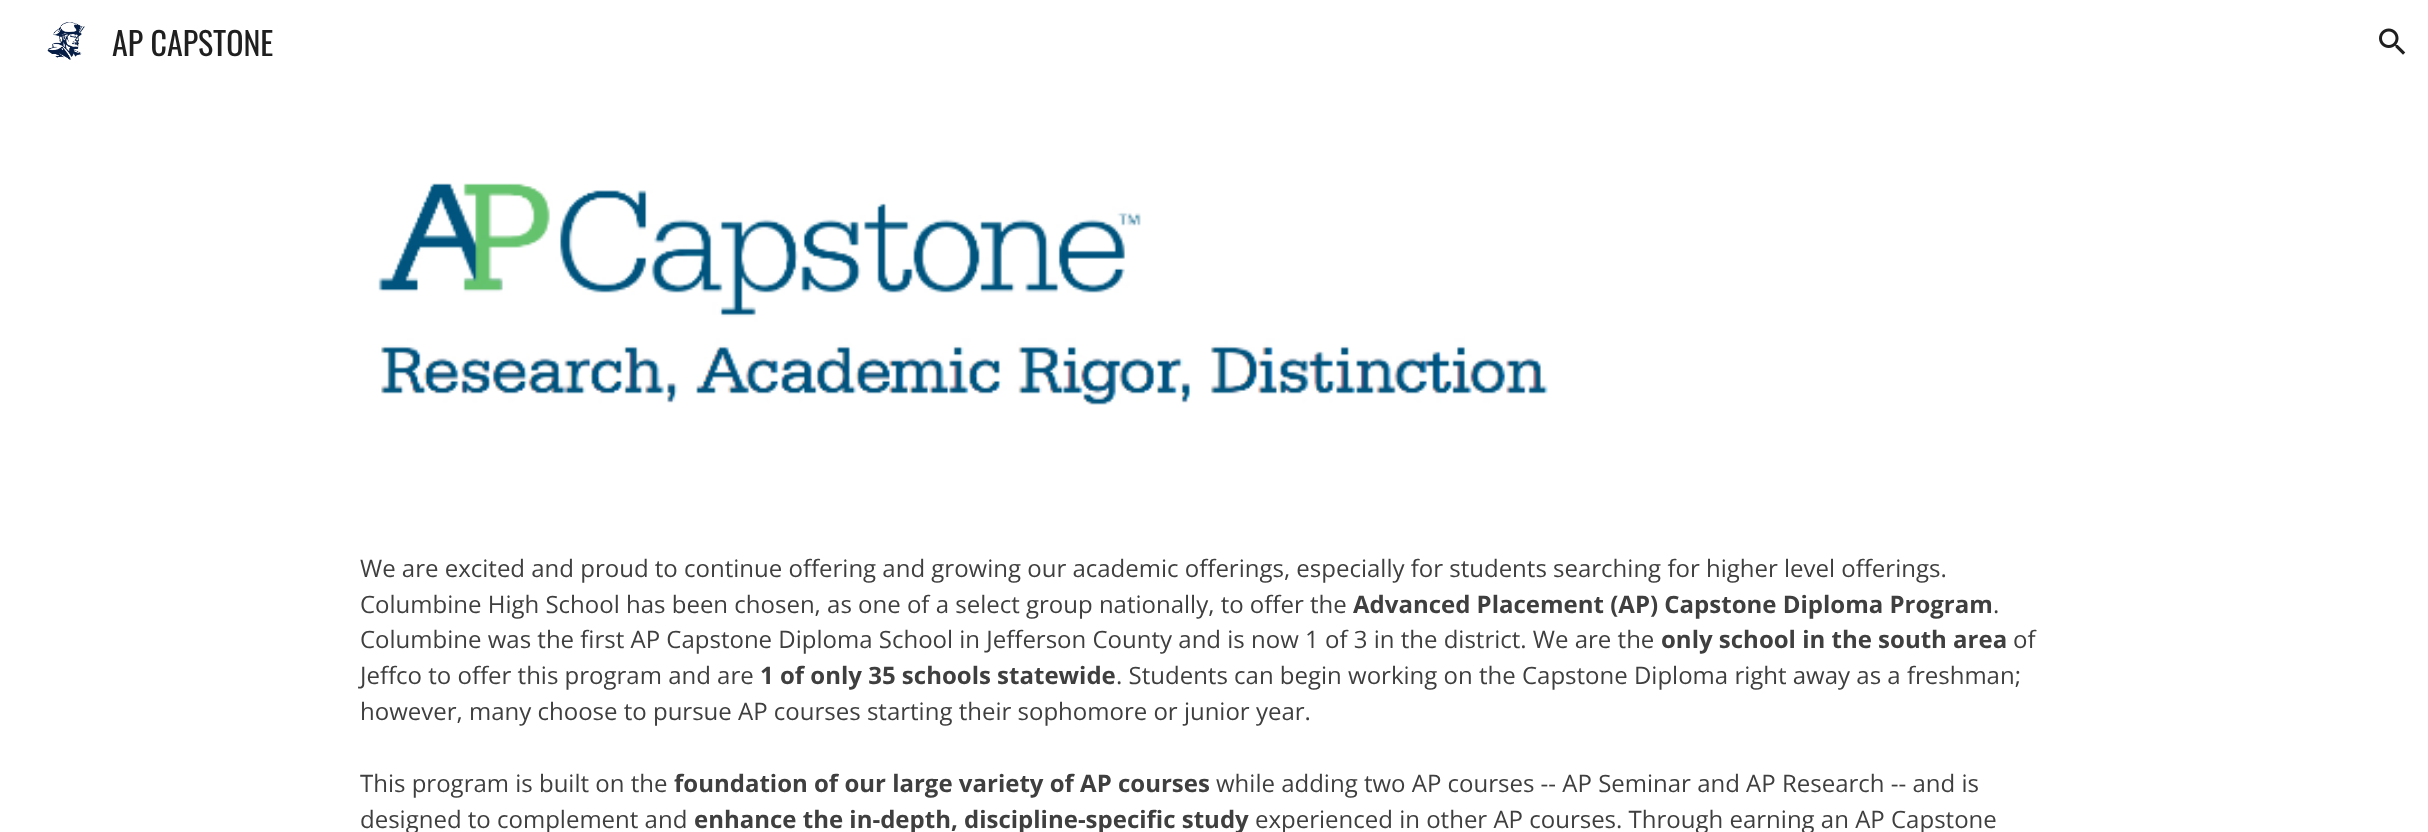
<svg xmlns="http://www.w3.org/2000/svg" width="2428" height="832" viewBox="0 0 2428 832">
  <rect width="100%" height="100%" fill="#fff"/>
  <image x="47" y="22" width="38" height="38" href="img/1.png"/>
  <image x="2379" y="28" width="27" height="27" href="img/2.png"/>
  <image x="378" y="183" width="1170" height="222" href="img/3.png"/>
  <text x="112" y="56" font-family="Oswald" font-size="32" fill="#1f1f1f">AP CAPSTONE</text>
  <g font-family="Open Sans" font-size="24" fill="#3f3f3f">
    <text x="360" y="577">We are excited and proud to continue offering and growing our academic offerings, especially for students searching for higher level offerings.</text>
    <text x="360" y="613">Columbine High School has been chosen, as one of a select group nationally, to offer the</text>
  </g>
  <text x="1353" y="613" font-family="Open Sans" font-size="24" font-weight="bold" fill="#3f3f3f">Advanced Placement (AP) Capstone Diploma Program</text>
  <g font-family="Open Sans" font-size="24" fill="#3f3f3f">
    <text x="1993" y="613">.</text>
    <text x="360" y="648">Columbine was the first AP Capstone Diploma School in Jefferson County and is now 1 of 3 in the district. We are the</text>
  </g>
  <text x="1661" y="648" font-family="Open Sans" font-size="24" font-weight="bold" fill="#3f3f3f">only school in the south area</text>
  <g font-family="Open Sans" font-size="24" fill="#3f3f3f">
    <text x="2013" y="648">of</text>
    <text x="360" y="684">Jeffco to offer this program and are</text>
  </g>
  <text x="760" y="684" font-family="Open Sans" font-size="24" font-weight="bold" fill="#3f3f3f">1 of only 35 schools statewide</text>
  <g font-family="Open Sans" font-size="24" fill="#3f3f3f">
    <text x="1116" y="684">. Students can begin working on the Capstone Diploma right away as a freshman;</text>
    <text x="360" y="720">however, many choose to pursue AP courses starting their sophomore or junior year.</text>
    <text x="360" y="792">This program is built on the</text>
  </g>
  <text x="674" y="792" font-family="Open Sans" font-size="24" font-weight="bold" fill="#3f3f3f">foundation of our large variety of AP courses</text>
  <g font-family="Open Sans" font-size="24" fill="#3f3f3f">
    <text x="1216" y="792">while adding two AP courses -- AP Seminar and AP Research -- and is</text>
    <text x="360" y="828">designed to complement and</text>
  </g>
  <text x="694" y="828" font-family="Open Sans" font-size="24" font-weight="bold" fill="#3f3f3f">enhance the in-depth, discipline-specific study</text>
  <text x="1255" y="828" font-family="Open Sans" font-size="24" fill="#3f3f3f">experienced in other AP courses. Through earning an AP Capstone</text>
</svg>
